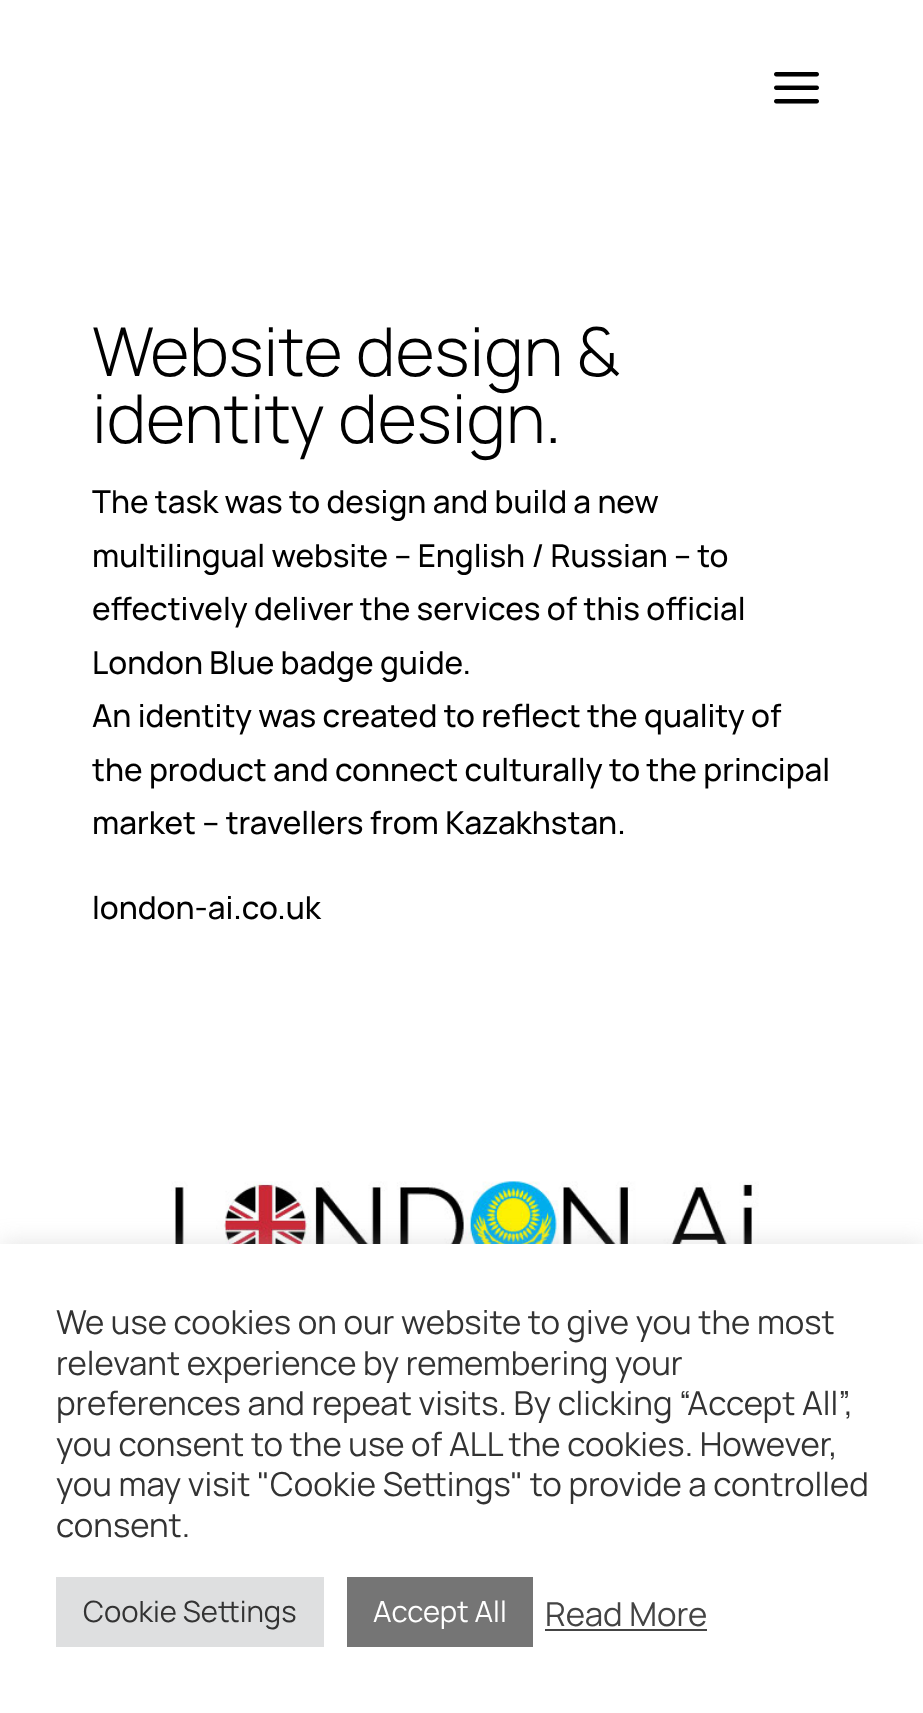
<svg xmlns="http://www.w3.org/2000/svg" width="923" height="1713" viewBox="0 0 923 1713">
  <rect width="100%" height="100%" fill="#fff"/>
  <image x="774" y="72" width="45" height="32" href="img/1.png"/>
  <image x="171" y="1181" width="588" height="63" href="img/2.png"/>
  <path d="M0 1242h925v470H0z" fill="#acabab4d" filter="blur(11px)"/>
  <path d="M0 1244h923v469H0z" fill="#fff"/>
  <path d="M56 1577h268v70H56z" fill="#dedfe0"/>
  <path d="M347 1577h186v70H347z" fill="#757575"/>
  <path d="M545 1629h162v2H545z" fill="#444"/>
  <g font-family="Manrope" font-size="67.5" font-weight="200" fill="#000">
    <text x="92" y="376">Website design &amp;</text>
    <text x="92" y="443">identity design.</text>
  </g>
  <g font-family="'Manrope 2'" font-size="31.5" font-weight="200" fill="#000">
    <text x="92" y="513">The task was to design and build a new</text>
    <text x="92" y="567">multilingual website – English / Russian – to</text>
    <text x="92" y="620">effectively deliver the services of this official</text>
    <text x="92" y="674">London Blue badge guide.</text>
    <text x="92" y="727">An identity was created to reflect the quality of</text>
    <text x="92" y="781">the product and connect culturally to the principal</text>
    <text x="92" y="834">market – travellers from Kazakhstan.</text>
    <text x="92" y="919">london-ai.co.uk</text>
  </g>
  <g font-family="'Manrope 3'" font-size="33" font-weight="200" fill="#333">
    <text x="56" y="1334">We use cookies on our website to give you the most</text>
    <text x="56" y="1375">relevant experience by remembering your</text>
    <text x="56" y="1415">preferences and repeat visits. By clicking “Accept All”,</text>
    <text x="56" y="1456">you consent to the use of ALL the cookies. However,</text>
    <text x="56" y="1496">you may visit "Cookie Settings" to provide a controlled</text>
    <text x="56" y="1537">consent.</text>
  </g>
  <text x="83" y="1622" font-family="'Manrope 3'" font-size="29.25" font-weight="200" fill="#333">Cookie Settings</text>
  <text x="373" y="1622" font-family="'Manrope 3'" font-size="29.25" font-weight="200" fill="#fff">Accept All</text>
  <text x="545" y="1626" font-family="'Manrope 3'" font-size="33" font-weight="200" fill="#444">Read More</text>
</svg>
